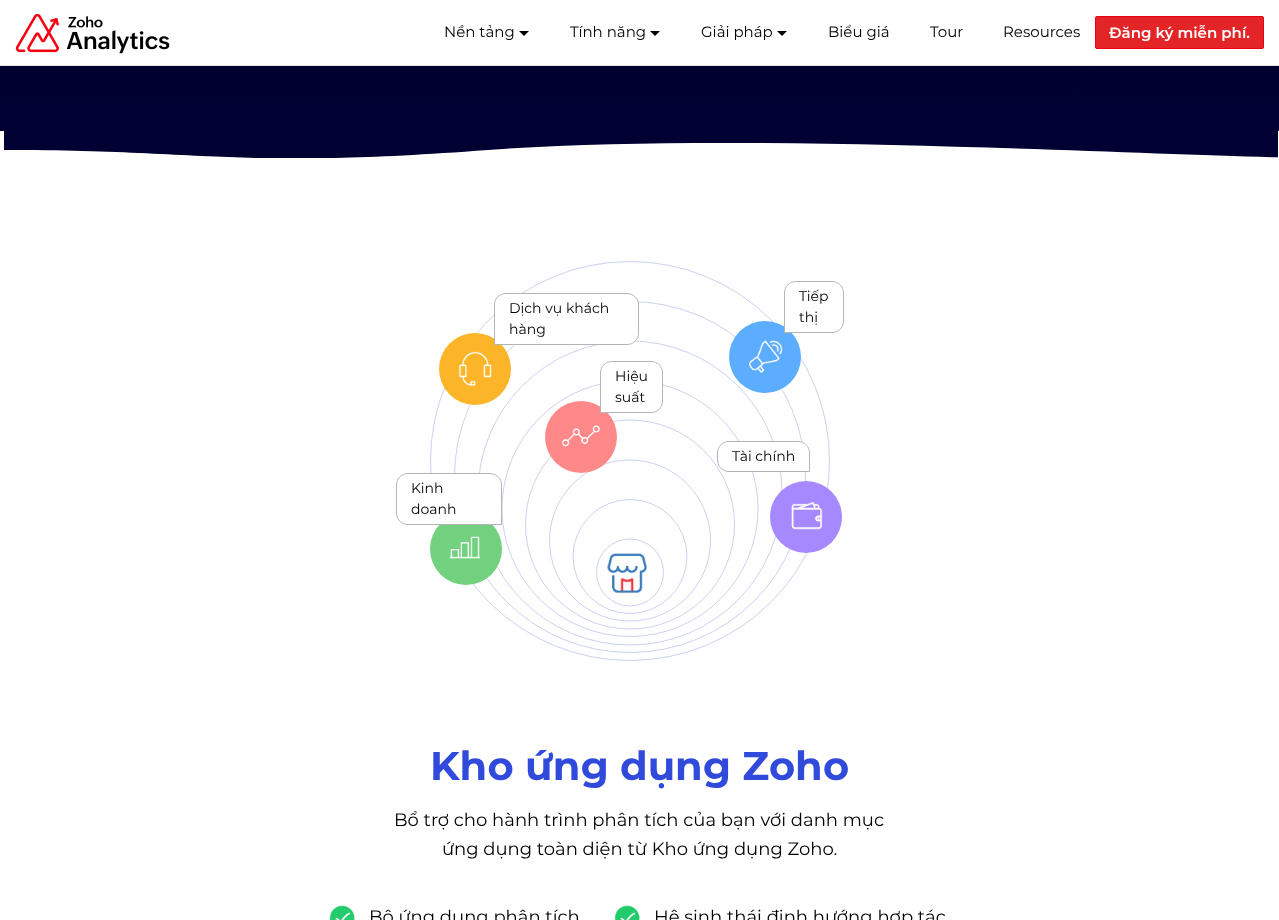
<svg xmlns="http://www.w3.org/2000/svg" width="1279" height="920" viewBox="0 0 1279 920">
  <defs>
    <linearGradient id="g1" gradientUnits="userSpaceOnUse" x1="640" y1="-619" x2="640" y2="131"><stop offset="0" stop-color="#000"/><stop offset="1" stop-color="#003"/></linearGradient>
    <clipPath id="clip1"><path d="M0 130h1278v28H0z"/></clipPath>
  </defs>
  <rect width="100%" height="100%" fill="#fff"/>
  <path d="M0 65h1279v1H0z" fill="#e6e6e6"/>
  <image x="15" y="13" width="155" height="41" href="img/1.png"/>
  <path d="M519 31H529L524 36Z" fill="#000"/>
  <path d="M650 31H660L655 36Z" fill="#000"/>
  <path d="M777 31H787L782 36Z" fill="#000"/>
  <rect x="1095.5" y="16.5" width="168" height="32" rx="1.5" fill="#e42527" stroke="#ee0014"/>
  <path d="M0 66h1279v65H0z" fill="url(#g1)"/>
  <image x="1069" y="66" width="44" height="38" href="img/2.png"/>
  <g clip-path="url(#clip1)">
    <path d="M4 130H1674C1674 130 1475 160 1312 158C1150 156 743 131 488 150C234 169 212 150 4 150Z" fill="#010032"/>
  </g>
  <circle cx="630" cy="461" r="199.5" fill="none" stroke="#c6cced" stroke-width="0.9"/>
  <circle cx="630" cy="477" r="175.5" fill="none" stroke="#c6cced" stroke-width="0.9"/>
  <circle cx="630" cy="493" r="152" fill="none" stroke="#c6cced" stroke-width="0.9"/>
  <circle cx="630" cy="508.5" r="128" fill="none" stroke="#c6cced" stroke-width="0.9"/>
  <circle cx="630" cy="524.5" r="104.5" fill="none" stroke="#c6cced" stroke-width="0.9"/>
  <circle cx="630" cy="540.5" r="80.5" fill="none" stroke="#c6cced" stroke-width="0.9"/>
  <circle cx="630" cy="556.5" r="57" fill="none" stroke="#c6cced" stroke-width="0.9"/>
  <circle cx="630" cy="572.5" r="33.5" fill="none" stroke="#c6cced" stroke-width="0.9"/>
  <circle cx="475" cy="369" r="36" fill="#fcb528"/>
  <path d="M506 293.5H627C633.5 293.5 638.5 298.5 638.5 305V333C638.5 339.5 633.5 344.5 627 344.5H494.5V305C494.5 298.5 499.5 293.5 506 293.5Z" fill="#fff" stroke="#b4b4b4"/>
  <image x="458" y="351" width="34" height="36" href="img/3.png"/>
  <circle cx="765" cy="357" r="36" fill="#5cadff"/>
  <path d="M796 281.5H832C838.5 281.5 843.5 286.5 843.5 293V321C843.5 327.5 838.5 332.5 832 332.5H784.5V293C784.5 286.5 789.5 281.5 796 281.5Z" fill="#fff" stroke="#b4b4b4"/>
  <image x="749" y="340" width="34" height="33" href="img/4.png"/>
  <circle cx="581" cy="437" r="36" fill="#ff8989"/>
  <path d="M612 361.5H651C657.5 361.5 662.5 366.5 662.5 373V401C662.5 407.5 657.5 412.5 651 412.5H600.5V373C600.5 366.5 605.5 361.5 612 361.5Z" fill="#fff" stroke="#b4b4b4"/>
  <image x="561" y="425" width="39" height="22" href="img/5.png"/>
  <circle cx="806" cy="517" r="36" fill="#a789ff"/>
  <path d="M729 441.5H798C804.5 441.5 809.5 446.5 809.5 453V471.5H729C722.5 471.5 717.5 466.5 717.5 460V453C717.5 446.5 722.5 441.5 729 441.5Z" fill="#fff" stroke="#b4b4b4"/>
  <image x="791" y="501" width="32" height="29" href="img/6.png"/>
  <circle cx="466" cy="549" r="36" fill="#72d17e"/>
  <path d="M408 473.5H490C496.5 473.5 501.5 478.5 501.5 485V524.5H408C401.5 524.5 396.5 519.5 396.5 513V485C396.5 478.5 401.5 473.5 408 473.5Z" fill="#fff" stroke="#b4b4b4"/>
  <image x="449" y="536" width="32" height="23" href="img/7.png"/>
  <image x="607" y="553" width="40" height="40" href="img/8.png"/>
  <image x="329" y="905" width="26" height="15" href="img/9.png"/>
  <image x="614" y="905" width="26" height="15" href="img/9.png"/>
  <g font-family="Montserrat" font-size="15" fill="#000">
    <text x="444" y="37">Nền tảng</text>
    <text x="570" y="37">Tính năng</text>
    <text x="701" y="37">Giải pháp</text>
    <text x="828" y="37">Biểu giá</text>
    <text x="930" y="37">Tour</text>
    <text x="1003" y="37">Resources</text>
  </g>
  <text x="1109" y="38" font-family="Montserrat" font-size="15" font-weight="600" fill="#fff">Đăng ký miễn phí.</text>
  <g font-family="Montserrat" font-size="14" fill="#000">
    <text x="509" y="313">Dịch vụ khách</text>
    <text x="509" y="334">hàng</text>
    <text x="799" y="301">Tiếp</text>
    <text x="799" y="322">thị</text>
    <text x="615" y="381">Hiệu</text>
    <text x="615" y="402">suất</text>
    <text x="732" y="461">Tài chính</text>
    <text x="411" y="493">Kinh</text>
    <text x="411" y="514">doanh</text>
  </g>
  <text x="430" y="780" font-family="Montserrat" font-size="40" font-weight="bold" fill="#304adb">Kho ứng dụng Zoho</text>
  <g font-family="Montserrat" font-size="18" fill="#000">
    <text x="394" y="826">Bổ trợ cho hành trình phân tích của bạn với danh mục</text>
    <text x="442" y="855">ứng dụng toàn diện từ Kho ứng dụng Zoho.</text>
    <text x="369" y="923">Bộ ứng dụng phân tích</text>
    <text x="654" y="923">Hệ sinh thái định hướng hợp tác</text>
  </g>
</svg>
